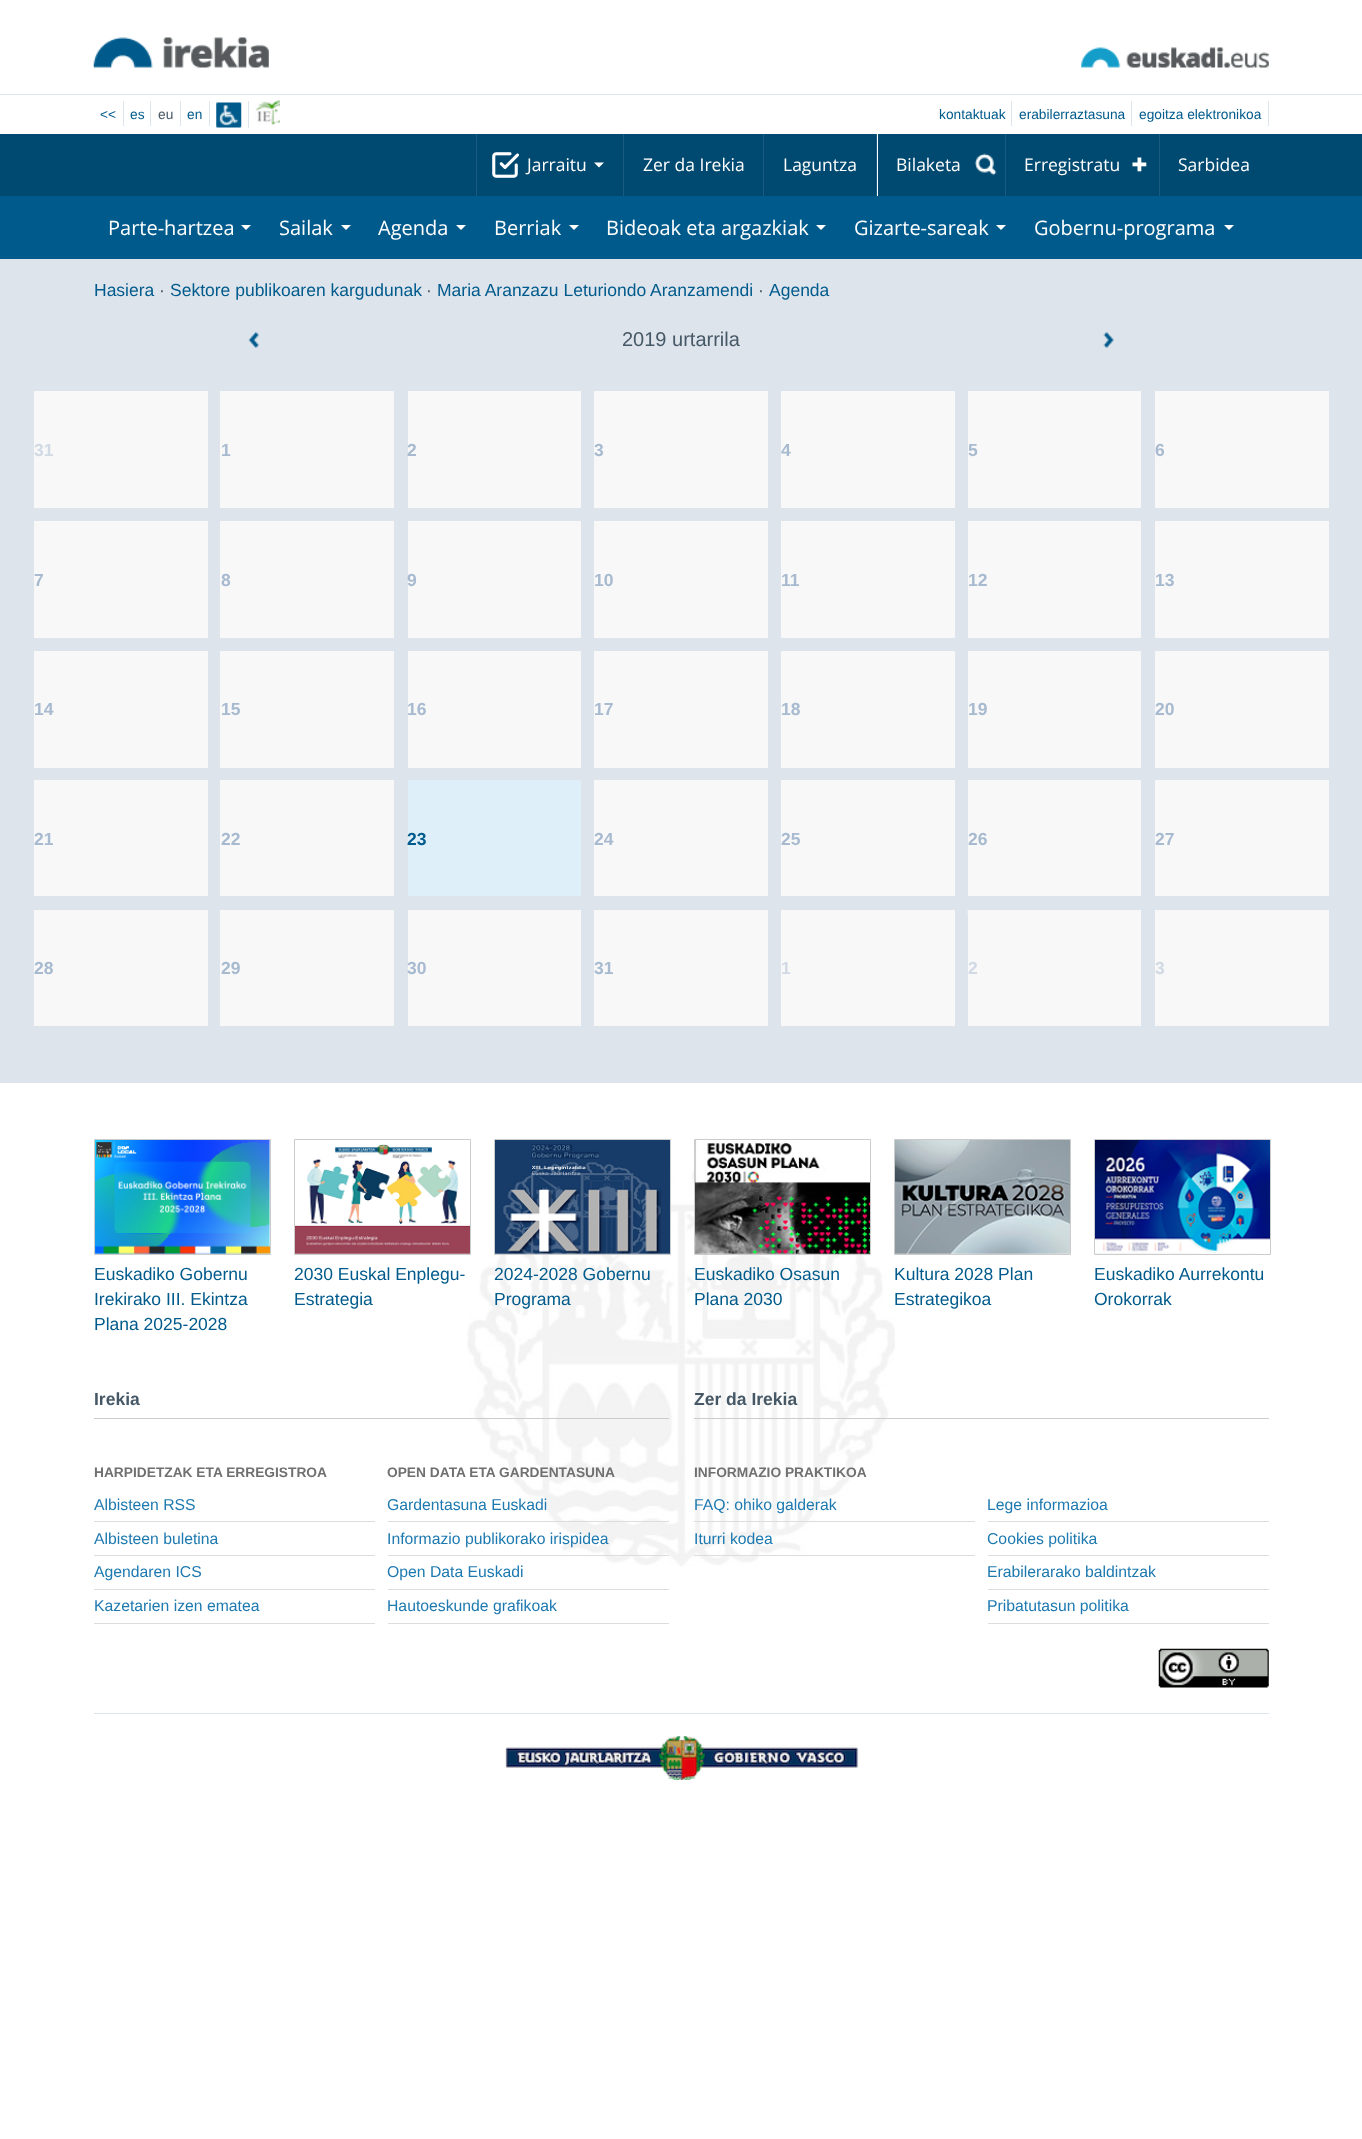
<svg xmlns="http://www.w3.org/2000/svg" width="1362" height="2139" viewBox="0 0 1362 2139">
  <rect width="100%" height="100%" fill="#fff"/>
  <image x="93" y="37" width="176" height="31" href="img/1.png"/>
  <image x="1081" y="47" width="188" height="21" href="img/2.png"/>
  <path d="M0 94h1362v1H0z" fill="#dde4ec"/>
  <path d="M123 101h1v25H123z" fill="#dde4ec"/>
  <path d="M150 101h1v25H150z" fill="#dde4ec"/>
  <path d="M180 101h1v25H180z" fill="#dde4ec"/>
  <path d="M209 101h1v25H209z" fill="#dde4ec"/>
  <path d="M248 101h1v27H248z" fill="#dde4ec"/>
  <image x="216" y="102" width="26" height="26" href="img/3.png"/>
  <image x="255" y="100" width="25" height="25" href="img/4.png"/>
  <path d="M1011 101h1v25H1011z" fill="#dde4ec"/>
  <path d="M1131 101h1v25H1131z" fill="#dde4ec"/>
  <path d="M1268 101h1v25H1268z" fill="#dde4ec"/>
  <path d="M0 134h1362v62H0z" fill="#004970"/>
  <path d="M476 134h1v62H476z" fill="#1a5c7f"/>
  <image x="492" y="152" width="27" height="26" href="img/5.png"/>
  <path d="M594 162.5H604L599 167.5Z" fill="#fff"/>
  <path d="M623 134h1v62H623z" fill="#1a5c7f"/>
  <path d="M763 134h1v62H763z" fill="#1a5c7f"/>
  <path d="M877 134h1v62H877z" fill="#fff"/>
  <path d="M876 134h1v62H876z" fill="#1a5c7f"/>
  <image x="974" y="153" width="23" height="23" href="img/6.png"/>
  <path d="M1005 134h1v62H1005z" fill="#1a5c7f"/>
  <image x="1132" y="157" width="15" height="15" href="img/7.png"/>
  <path d="M1159 134h1v62H1159z" fill="#1a5c7f"/>
  <path d="M0 196h1362v63H0z" fill="#005b8c"/>
  <path d="M241 225H251L246 230Z" fill="#fff"/>
  <path d="M341 225H351L346 230Z" fill="#fff"/>
  <path d="M456 225H466L461 230Z" fill="#fff"/>
  <path d="M569 225H579L574 230Z" fill="#fff"/>
  <path d="M816 225H826L821 230Z" fill="#fff"/>
  <path d="M996 225H1006L1001 230Z" fill="#fff"/>
  <path d="M1224 225H1234L1229 230Z" fill="#fff"/>
  <path d="M0 259h1362v824H0z" fill="#dde4ec"/>
  <image x="248" y="332" width="11" height="16" href="img/8.png"/>
  <image x="1103" y="332" width="11" height="16" href="img/9.png"/>
  <path d="M34 391h174v117H34z" fill="#f8f8f9"/>
  <path d="M33 392h1v2H33z" fill="#e1e8ee"/>
  <path d="M220 391h174v117H220z" fill="#f8f8f9"/>
  <path d="M408 391h173v117H408z" fill="#f8f8f9"/>
  <path d="M594 391h174v117H594z" fill="#f8f8f9"/>
  <path d="M781 391h174v117H781z" fill="#f8f8f9"/>
  <path d="M968 391h173v117H968z" fill="#f8f8f9"/>
  <path d="M1155 391h174v117H1155z" fill="#f8f8f9"/>
  <path d="M34 521h174v117H34z" fill="#f8f8f9"/>
  <path d="M220 521h174v117H220z" fill="#f8f8f9"/>
  <path d="M408 521h173v117H408z" fill="#f8f8f9"/>
  <path d="M594 521h174v117H594z" fill="#f8f8f9"/>
  <path d="M781 521h174v117H781z" fill="#f8f8f9"/>
  <path d="M968 521h173v117H968z" fill="#f8f8f9"/>
  <path d="M1155 521h174v117H1155z" fill="#f8f8f9"/>
  <path d="M34 651h174v117H34z" fill="#f8f8f9"/>
  <path d="M220 651h174v117H220z" fill="#f8f8f9"/>
  <path d="M408 651h173v117H408z" fill="#f8f8f9"/>
  <path d="M594 651h174v117H594z" fill="#f8f8f9"/>
  <path d="M781 651h174v117H781z" fill="#f8f8f9"/>
  <path d="M968 651h173v117H968z" fill="#f8f8f9"/>
  <path d="M1155 651h174v117H1155z" fill="#f8f8f9"/>
  <path d="M34 780h174v116H34z" fill="#f8f8f9"/>
  <path d="M220 780h174v116H220z" fill="#f8f8f9"/>
  <path d="M408 780h173v116H408z" fill="#deeffa"/>
  <path d="M594 780h174v116H594z" fill="#f8f8f9"/>
  <path d="M781 780h174v116H781z" fill="#f8f8f9"/>
  <path d="M968 780h173v116H968z" fill="#f8f8f9"/>
  <path d="M1155 780h174v116H1155z" fill="#f8f8f9"/>
  <path d="M34 910h174v116H34z" fill="#f8f8f9"/>
  <path d="M220 910h174v116H220z" fill="#f8f8f9"/>
  <path d="M408 910h173v116H408z" fill="#f8f8f9"/>
  <path d="M594 910h174v116H594z" fill="#f8f8f9"/>
  <path d="M781 910h174v116H781z" fill="#f8f8f9"/>
  <path d="M968 910h173v116H968z" fill="#f8f8f9"/>
  <image x="967" y="910" width="1" height="4" href="img/10.png"/>
  <path d="M1155 910h174v116H1155z" fill="#f8f8f9"/>
  <image x="467" y="1165" width="428" height="402" href="img/11.png"/>
  <path d="M94.5 1139.5h176v115H94.5z" fill="none" stroke="#ccc"/>
  <image x="95" y="1140" width="175" height="114" href="img/12.png"/>
  <path d="M294.5 1139.5h176v115H294.5z" fill="none" stroke="#ccc"/>
  <image x="295" y="1144" width="175" height="110" href="img/13.png"/>
  <path d="M494.5 1139.5h176v115H494.5z" fill="none" stroke="#ccc"/>
  <image x="495" y="1140" width="175" height="114" href="img/14.png"/>
  <path d="M694.5 1139.5h176v115H694.5z" fill="none" stroke="#ccc"/>
  <image x="695" y="1140" width="175" height="114" href="img/15.png"/>
  <path d="M894.5 1139.5h176v115H894.5z" fill="none" stroke="#ccc"/>
  <image x="895" y="1140" width="175" height="114" href="img/16.png"/>
  <path d="M1094.5 1139.5h176v115H1094.5z" fill="none" stroke="#ccc"/>
  <image x="1095" y="1140" width="175" height="114" href="img/17.png"/>
  <path d="M94 1418h575v1H94z" fill="#ccc"/>
  <path d="M94 1521h281v1H94z" fill="#ddd"/>
  <path d="M94 1555h281v1H94z" fill="#ddd"/>
  <path d="M94 1589h281v1H94z" fill="#ddd"/>
  <path d="M94 1623h281v1H94z" fill="#ddd"/>
  <path d="M388 1521h281v1H388z" fill="#ddd"/>
  <path d="M388 1555h281v1H388z" fill="#ddd"/>
  <path d="M388 1589h281v1H388z" fill="#ddd"/>
  <path d="M388 1623h281v1H388z" fill="#ddd"/>
  <path d="M694 1418h575v1H694z" fill="#ccc"/>
  <path d="M694 1521h281v1H694z" fill="#ddd"/>
  <path d="M694 1555h281v1H694z" fill="#ddd"/>
  <path d="M988 1521h281v1H988z" fill="#ddd"/>
  <path d="M988 1555h281v1H988z" fill="#ddd"/>
  <path d="M988 1589h281v1H988z" fill="#ddd"/>
  <path d="M988 1623h281v1H988z" fill="#ddd"/>
  <image x="1158" y="1648" width="111" height="40" href="img/18.png"/>
  <path d="M94 1713h1175v1H94z" fill="#dde4ec"/>
  <image x="505" y="1736" width="354" height="44" href="img/19.png"/>
  <g font-family="Liberation Sans" font-size="13.75" fill="#005b8c">
    <text x="100" y="119">&lt;&lt;</text>
    <text x="130" y="119">es</text>
  </g>
  <text x="158" y="119" font-family="Liberation Sans" font-size="13.75" fill="#465866">eu</text>
  <g font-family="Liberation Sans" font-size="13.75" fill="#005b8c">
    <text x="187" y="119">en</text>
    <text x="939" y="119">kontaktuak</text>
    <text x="1019" y="119">erabilerraztasuna</text>
    <text x="1139" y="119">egoitza elektronikoa</text>
  </g>
  <g font-family="Open Sans" font-size="17.5" fill="#fff">
    <text x="527" y="171">Jarraitu</text>
    <text x="643" y="171">Zer da Irekia</text>
    <text x="783" y="171">Laguntza</text>
    <text x="896" y="171">Bilaketa</text>
    <text x="1024" y="171">Erregistratu</text>
    <text x="1178" y="171">Sarbidea</text>
  </g>
  <g font-family="Open Sans" font-size="20" fill="#fff">
    <text x="108" y="235">Parte-hartzea</text>
    <text x="279" y="235">Sailak</text>
    <text x="378" y="235">Agenda</text>
    <text x="494" y="235">Berriak</text>
    <text x="606" y="235">Bideoak eta argazkiak</text>
    <text x="854" y="235">Gizarte-sareak</text>
    <text x="1034" y="235">Gobernu-programa</text>
  </g>
  <text x="94" y="296" font-family="Liberation Sans" font-size="17.5" fill="#005b8c">Hasiera</text>
  <text x="159" y="296" font-family="Liberation Sans" font-size="17.5" fill="#465866">·</text>
  <text x="170" y="296" font-family="Liberation Sans" font-size="17.5" fill="#005b8c">Sektore publikoaren kargudunak</text>
  <text x="426" y="296" font-family="Liberation Sans" font-size="17.5" fill="#465866">·</text>
  <text x="437" y="296" font-family="Liberation Sans" font-size="17.5" fill="#005b8c">Maria Aranzazu Leturiondo Aranzamendi</text>
  <text x="758" y="296" font-family="Liberation Sans" font-size="17.5" fill="#465866">·</text>
  <text x="769" y="296" font-family="Liberation Sans" font-size="17.5" fill="#005b8c">Agenda</text>
  <text x="622" y="346" font-family="Liberation Sans" font-size="20" fill="#465866">2019 urtarrila</text>
  <text x="34" y="456" font-family="Liberation Sans" font-size="17.5" font-weight="bold" fill="#d0d9e4">31</text>
  <g font-family="Liberation Sans" font-size="17.5" font-weight="bold" fill="#a7bacf">
    <text x="221" y="456">1</text>
    <text x="407" y="456">2</text>
    <text x="594" y="456">3</text>
    <text x="781" y="456">4</text>
    <text x="968" y="456">5</text>
    <text x="1155" y="456">6</text>
    <text x="34" y="586">7</text>
    <text x="221" y="586">8</text>
    <text x="407" y="586">9</text>
    <text x="594" y="586">10</text>
    <text x="781" y="586">11</text>
    <text x="968" y="586">12</text>
    <text x="1155" y="586">13</text>
    <text x="34" y="715">14</text>
    <text x="221" y="715">15</text>
    <text x="407" y="715">16</text>
    <text x="594" y="715">17</text>
    <text x="781" y="715">18</text>
    <text x="968" y="715">19</text>
    <text x="1155" y="715">20</text>
    <text x="34" y="845">21</text>
    <text x="221" y="845">22</text>
  </g>
  <text x="407" y="845" font-family="Liberation Sans" font-size="17.5" font-weight="bold" fill="#005b8c">23</text>
  <g font-family="Liberation Sans" font-size="17.5" font-weight="bold" fill="#a7bacf">
    <text x="594" y="845">24</text>
    <text x="781" y="845">25</text>
    <text x="968" y="845">26</text>
    <text x="1155" y="845">27</text>
    <text x="34" y="974">28</text>
    <text x="221" y="974">29</text>
    <text x="407" y="974">30</text>
    <text x="594" y="974">31</text>
  </g>
  <g font-family="Liberation Sans" font-size="17.5" font-weight="bold" fill="#d0d9e4">
    <text x="781" y="974">1</text>
    <text x="968" y="974">2</text>
    <text x="1155" y="974">3</text>
  </g>
  <g font-family="Liberation Sans" font-size="17.5" fill="#005b8c">
    <text x="94" y="1280">Euskadiko Gobernu</text>
    <text x="94" y="1305">Irekirako III. Ekintza</text>
    <text x="94" y="1330">Plana 2025-2028</text>
    <text x="294" y="1280">2030 Euskal Enplegu-</text>
    <text x="294" y="1305">Estrategia</text>
    <text x="494" y="1280">2024-2028 Gobernu</text>
    <text x="494" y="1305">Programa</text>
    <text x="694" y="1280">Euskadiko Osasun</text>
    <text x="694" y="1305">Plana 2030</text>
    <text x="894" y="1280">Kultura 2028 Plan</text>
    <text x="894" y="1305">Estrategikoa</text>
    <text x="1094" y="1280">Euskadiko Aurrekontu</text>
    <text x="1094" y="1305">Orokorrak</text>
  </g>
  <text x="94" y="1405" font-family="Liberation Sans" font-size="17.5" font-weight="bold" fill="#465866">Irekia</text>
  <text x="94" y="1477" font-family="Liberation Sans" font-size="13.75" font-weight="bold" fill="#707070">HARPIDETZAK ETA ERREGISTROA</text>
  <g font-family="Liberation Sans" font-size="15.75" fill="#1d79b0">
    <text x="94" y="1510">Albisteen RSS</text>
    <text x="94" y="1544">Albisteen buletina</text>
    <text x="94" y="1577">Agendaren ICS</text>
    <text x="94" y="1611">Kazetarien izen ematea</text>
  </g>
  <text x="387" y="1477" font-family="Liberation Sans" font-size="13.75" font-weight="bold" fill="#707070">OPEN DATA ETA GARDENTASUNA</text>
  <g font-family="Liberation Sans" font-size="15.75" fill="#1d79b0">
    <text x="387" y="1510">Gardentasuna Euskadi</text>
    <text x="387" y="1544">Informazio publikorako irispidea</text>
    <text x="387" y="1577">Open Data Euskadi</text>
    <text x="387" y="1611">Hautoeskunde grafikoak</text>
  </g>
  <text x="694" y="1405" font-family="Liberation Sans" font-size="17.5" font-weight="bold" fill="#465866">Zer da Irekia</text>
  <text x="694" y="1477" font-family="Liberation Sans" font-size="13.75" font-weight="bold" fill="#707070">INFORMAZIO PRAKTIKOA</text>
  <g font-family="Liberation Sans" font-size="15.75" fill="#1d79b0">
    <text x="694" y="1510">FAQ: ohiko galderak</text>
    <text x="694" y="1544">Iturri kodea</text>
    <text x="987" y="1510">Lege informazioa</text>
    <text x="987" y="1544">Cookies politika</text>
    <text x="987" y="1577">Erabilerarako baldintzak</text>
    <text x="987" y="1611">Pribatutasun politika</text>
  </g>
</svg>
